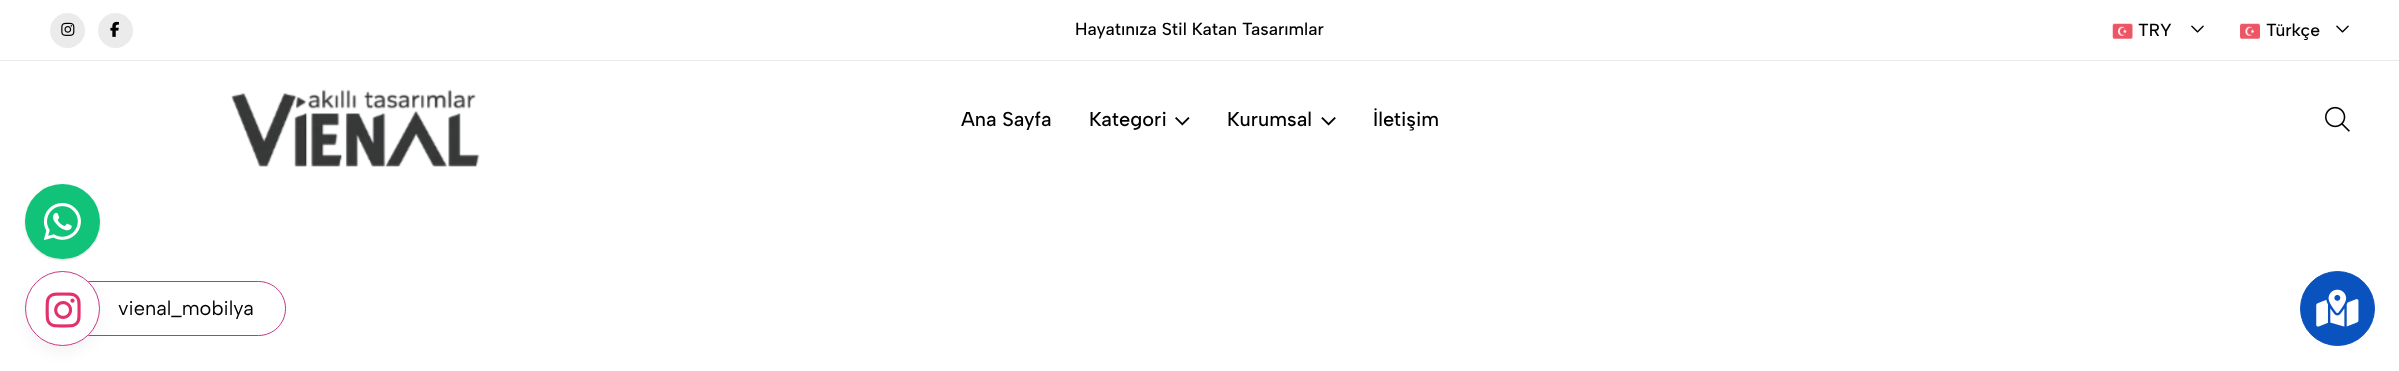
<svg xmlns="http://www.w3.org/2000/svg" width="2399" height="371" viewBox="0 0 2399 371">
  <defs>
    <clipPath id="clip1"><path d="M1 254H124V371H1ZM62.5 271C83 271 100 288 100 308.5C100 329 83 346 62.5 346C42 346 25 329 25 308.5C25 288 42 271 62.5 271Z" clip-rule="evenodd"/></clipPath>
  </defs>
  <rect width="100%" height="100%" fill="#fff"/>
  <path d="M0 60h2399v1H0z" fill="#ebebeb"/>
  <circle cx="67.5" cy="30.5" r="17.5" fill="#ebebeb"/>
  <image x="61" y="22" width="14" height="14" href="img/1.png"/>
  <circle cx="115.5" cy="30.5" r="17.5" fill="#ebebeb"/>
  <image x="110" y="21" width="9" height="16" href="img/2.png"/>
  <image x="2112" y="23" width="21" height="16" href="img/3.png"/>
  <image x="2191" y="25" width="13" height="8" href="img/4.png"/>
  <image x="2240" y="23" width="20" height="16" href="img/5.png"/>
  <image x="2336" y="25" width="13" height="8" href="img/4.png"/>
  <image x="231" y="89" width="249" height="78" href="img/6.png"/>
  <image x="1175" y="117" width="15" height="9" href="img/7.png"/>
  <image x="1321" y="117" width="15" height="9" href="img/8.png"/>
  <image x="2325" y="106" width="25" height="26" href="img/9.png"/>
  <rect x="25" y="185" width="75" height="75" rx="37.5" fill="#00000026" filter="blur(1px)"/>
  <circle cx="62.5" cy="221.5" r="37.5" fill="#10c379"/>
  <image x="43" y="203" width="38" height="38" href="img/10.png"/>
  <path d="M85.5 281.5H258.5C273.5 281.5 285.5 293.5 285.5 308.5C285.5 323.5 273.5 335.5 258.5 335.5H85.5Z" fill="none" stroke="#c13584"/>
  <g clip-path="url(#clip1)">
    <rect x="31" y="284" width="63" height="62" rx="31" fill="#0000001a" filter="blur(9.5px)"/>
  </g>
  <circle cx="62.5" cy="308.5" r="37.5" fill="#fffffffc"/>
  <circle cx="62.5" cy="308.5" r="37" fill="none" stroke="#c13584fc"/>
  <image x="45" y="292" width="36" height="36" href="img/11.png"/>
  <circle cx="2337.5" cy="308.5" r="37" fill="#0a53be" stroke="#0a53be"/>
  <image x="2316" y="289" width="43" height="38" href="img/12.png"/>
  <g font-family="Albert Sans" font-size="17.5" font-weight="500" fill="#000">
    <text x="1075" y="35">Hayatınıza Stil Katan Tasarımlar</text>
    <text x="2138" y="36">TRY</text>
    <text x="2266" y="36">Türkçe</text>
  </g>
  <g font-family="Albert Sans" font-size="20" font-weight="500" fill="#000">
    <text x="961" y="126">Ana Sayfa</text>
    <text x="1089" y="126">Kategori</text>
    <text x="1227" y="126">Kurumsal</text>
    <text x="1373" y="126">İletişim</text>
  </g>
  <text x="118" y="315" font-family="Albert Sans" font-size="20" fill="#000">vienal_mobilya</text>
</svg>
